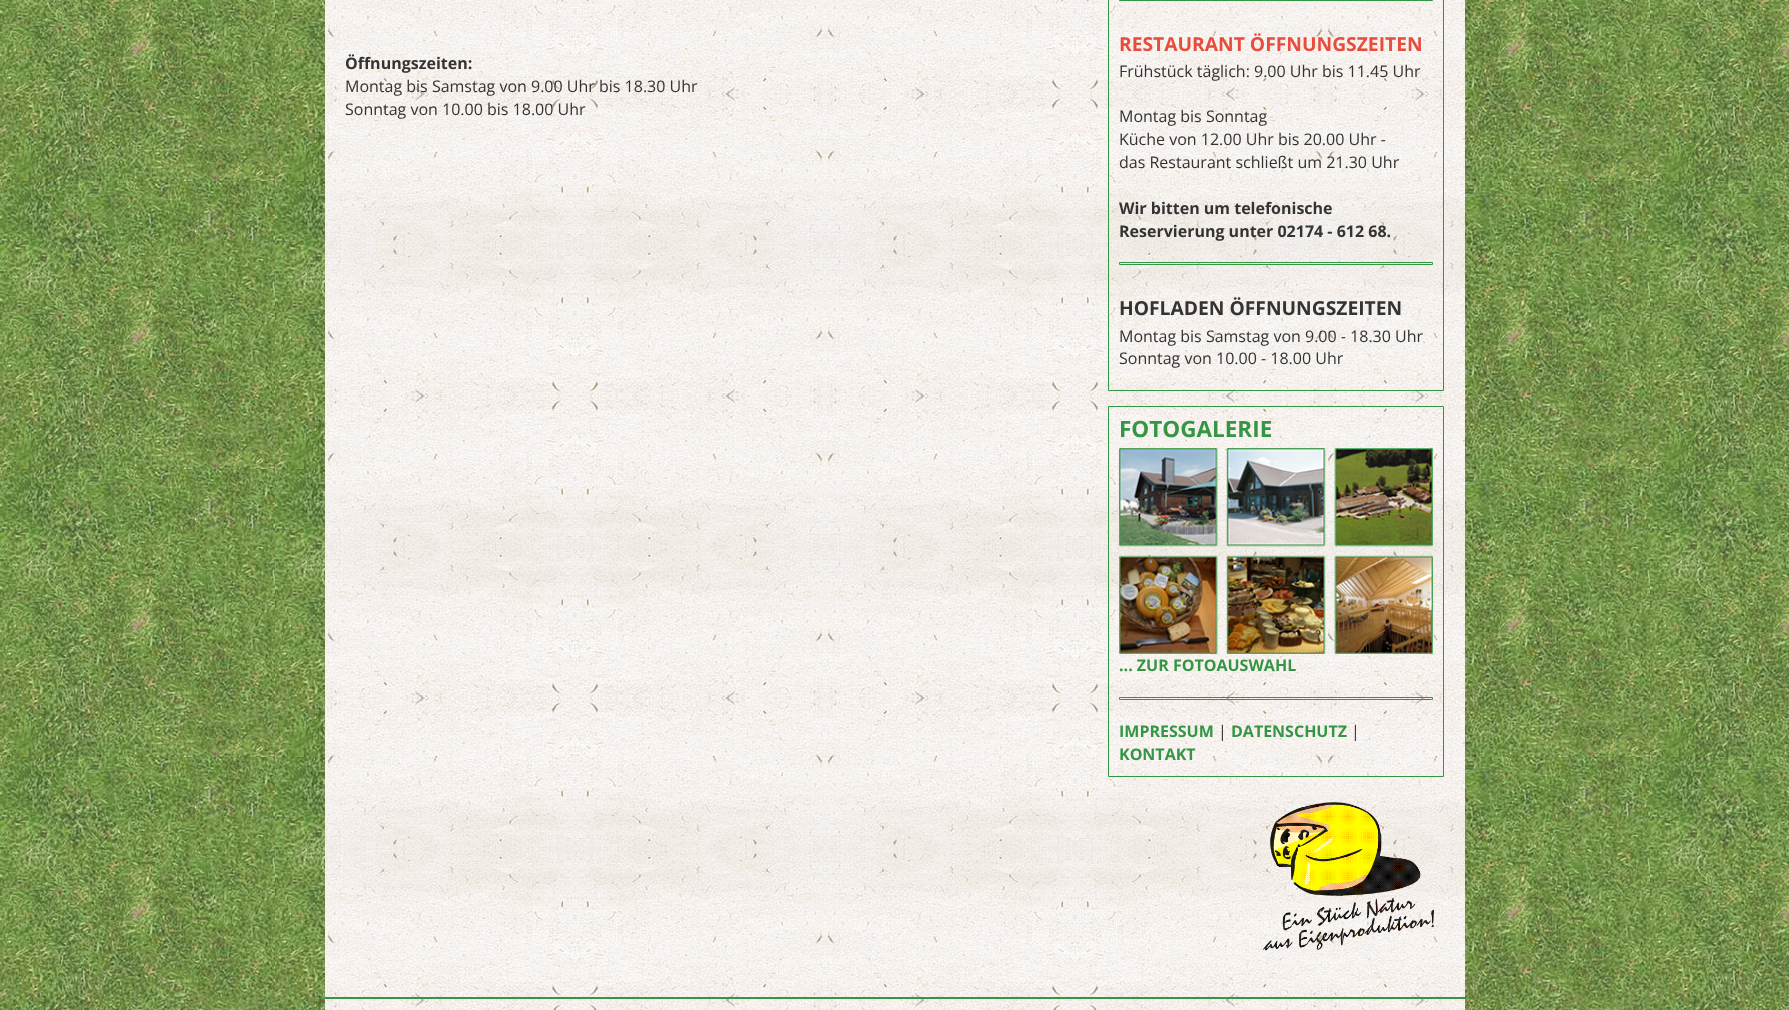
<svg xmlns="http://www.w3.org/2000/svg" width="1789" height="1010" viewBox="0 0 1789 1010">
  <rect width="100%" height="100%" fill="#fff"/>
  <image x="0" y="0" width="1789" height="1010" href="img/1.png"/>
  <image x="325" y="0" width="1140" height="1010" href="img/2.png"/>
  <path d="M1108.5 -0.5h335v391H1108.5z" fill="none" stroke="#349644"/>
  <path d="M1119.5 -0.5h313v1H1119.5z" fill="none" stroke="#349644"/>
  <path d="M1119.5 262.5h313v2H1119.5z" fill="none" stroke="#349644"/>
  <path d="M1108.5 406.5h335v370H1108.5z" fill="none" stroke="#349644"/>
  <image x="1119" y="448" width="314" height="206" href="img/3.png"/>
  <path d="M1119.5 697.5h313v2H1119.5z" fill="none" stroke="#349644"/>
  <image x="1263" y="802" width="171" height="149" href="img/4.png"/>
  <path d="M325 997h1140v2H325z" fill="#349644"/>
  <text x="345" y="69" font-family="Open Sans" font-size="16" font-weight="bold" fill="#333">Öffnungszeiten:</text>
  <g font-family="Open Sans" font-size="16" fill="#333">
    <text x="345" y="92">Montag bis Samstag von 9.00 Uhr bis 18.30 Uhr</text>
    <text x="345" y="115">Sonntag von 10.00 bis 18.00 Uhr</text>
  </g>
  <text x="1119" y="51" font-family="Open Sans" font-size="19.25" font-weight="bold" fill="#e74c3c">RESTAURANT ÖFFNUNGSZEITEN</text>
  <g font-family="Open Sans" font-size="16" fill="#333">
    <text x="1119" y="77">Frühstück täglich: 9.00 Uhr bis 11.45 Uhr</text>
    <text x="1119" y="122">Montag bis Sonntag</text>
    <text x="1119" y="145">Küche von 12.00 Uhr bis 20.00 Uhr -</text>
    <text x="1119" y="168">das Restaurant schließt um 21.30 Uhr</text>
  </g>
  <g font-family="Open Sans" font-size="16" font-weight="bold" fill="#333">
    <text x="1119" y="214">Wir bitten um telefonische</text>
    <text x="1119" y="237">Reservierung unter 02174 - 612 68.</text>
  </g>
  <text x="1119" y="315" font-family="Open Sans" font-size="19.25" font-weight="bold" fill="#333">HOFLADEN ÖFFNUNGSZEITEN</text>
  <g font-family="Open Sans" font-size="16" fill="#333">
    <text x="1119" y="342">Montag bis Samstag von 9.00 - 18.30 Uhr</text>
    <text x="1119" y="364">Sonntag von 10.00 - 18.00 Uhr</text>
  </g>
  <text x="1119" y="437" font-family="Open Sans" font-size="22.5" font-weight="bold" fill="#349644">FOTOGALERIE</text>
  <g font-family="Open Sans" font-size="16" font-weight="bold" fill="#349644">
    <text x="1119" y="671">... ZUR FOTOAUSWAHL</text>
    <text x="1119" y="737">IMPRESSUM</text>
  </g>
  <text x="1218" y="737" font-family="Open Sans" font-size="16" fill="#333">|</text>
  <text x="1231" y="737" font-family="Open Sans" font-size="16" font-weight="bold" fill="#349644">DATENSCHUTZ</text>
  <text x="1351" y="737" font-family="Open Sans" font-size="16" fill="#333">|</text>
  <text x="1119" y="760" font-family="Open Sans" font-size="16" font-weight="bold" fill="#349644">KONTAKT</text>
</svg>
